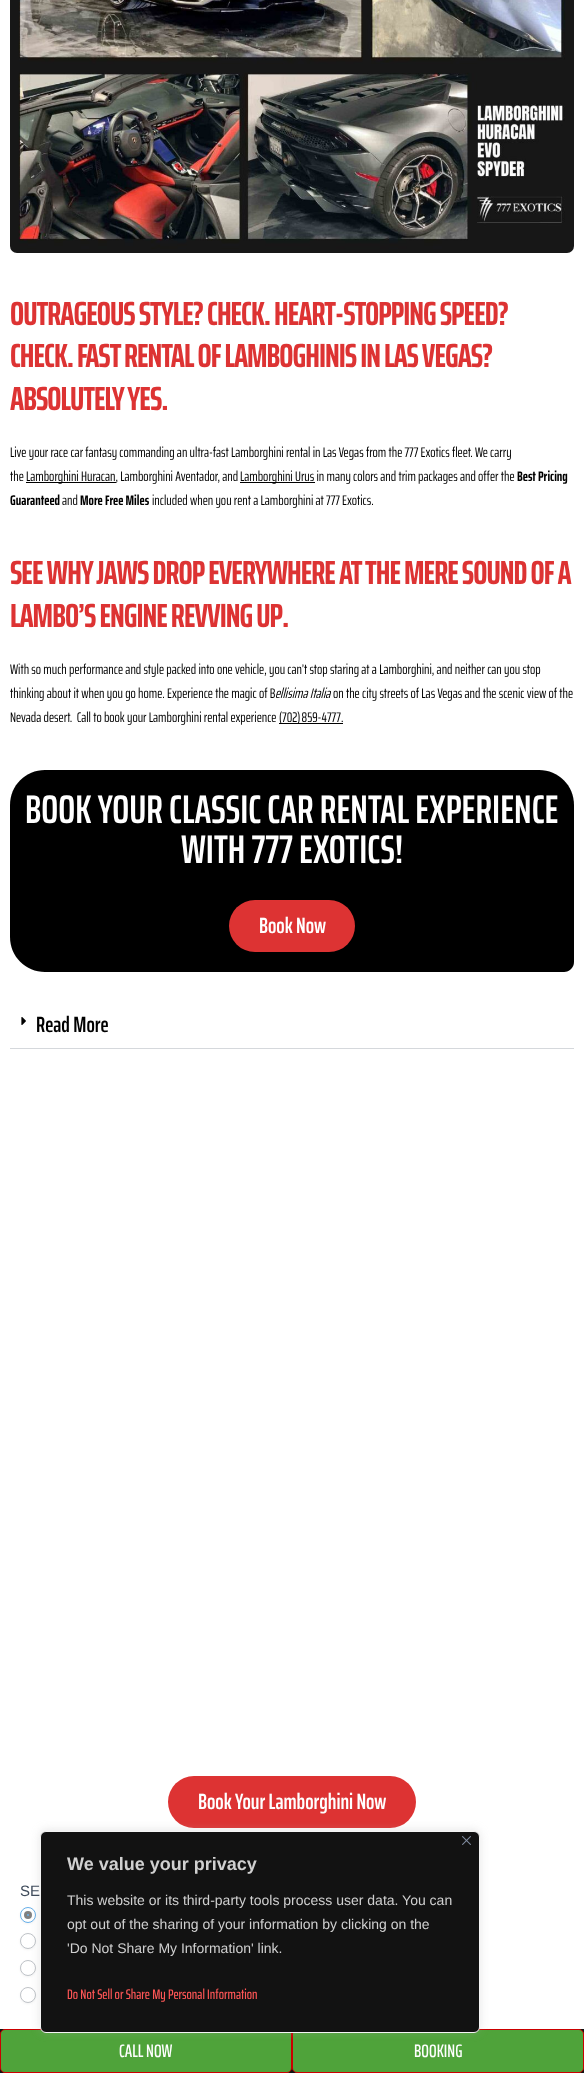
<svg xmlns="http://www.w3.org/2000/svg" width="584" height="2073" viewBox="0 0 584 2073">
  <rect width="100%" height="100%" fill="#fff"/>
  <image x="10" y="0" width="564" height="253" href="img/1.png"/>
  <path d="M26 482h90v1H26z" fill="#000"/>
  <path d="M240 482h75v1H240z" fill="#000"/>
  <path d="M279 723h64v1H279z" fill="#000"/>
  <path d="M45 770H539C558.5 770 574 785.5 574 805V962C574 967.5 569.5 972 564 972H45C25.5 972 10 956.5 10 937V805C10 785.5 25.5 770 45 770Z" fill="#000"/>
  <rect x="229" y="900" width="126" height="52" rx="26" fill="#d33"/>
  <path d="M10 1048h564v1H10z" fill="#d5d8dc"/>
  <image x="21" y="1017" width="5" height="8" href="img/2.png"/>
  <rect x="168" y="1776" width="248" height="52" rx="26" fill="#d33"/>
  <rect x="20" y="1908" width="16" height="16" rx="8" fill="#1212170d" filter="blur(1px)"/>
  <circle cx="28" cy="1915" r="7.5" fill="#fff" stroke="#66afe9"/>
  <circle cx="28" cy="1915" r="2.5" fill="#66afe9" stroke="#808080" stroke-width="3"/>
  <rect x="20" y="1934" width="16" height="16" rx="8" fill="#1212170d" filter="blur(1px)"/>
  <circle cx="28" cy="1941" r="7.5" fill="#fff" stroke="#bfc3c8"/>
  <rect x="20" y="1961" width="16" height="16" rx="8" fill="#1212170d" filter="blur(1px)"/>
  <circle cx="28" cy="1968" r="7.5" fill="#fff" stroke="#bfc3c8"/>
  <rect x="20" y="1988" width="16" height="16" rx="8" fill="#1212170d" filter="blur(1px)"/>
  <circle cx="28" cy="1995" r="7.5" fill="#fff" stroke="#bfc3c8"/>
  <path d="M0 2029h584v44H0z" fill="#121212"/>
  <rect x="0.5" y="2029.5" width="291" height="43" rx="4.5" fill="#4fa33a" stroke="#cb0000"/>
  <rect x="292.5" y="2029.5" width="291" height="43" rx="4.5" fill="#4fa33a" stroke="#cb0000"/>
  <rect x="40" y="1830" width="440" height="202" rx="6" fill="#acabab4d" filter="blur(5px)"/>
  <rect x="40.5" y="1831.5" width="439" height="201" rx="5.5" fill="#121212" stroke="#f4f4f4"/>
  <image x="462" y="1836" width="9" height="9" href="img/3.png"/>
  <g font-family="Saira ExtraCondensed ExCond" font-size="33.6" font-weight="bold" letter-spacing="-1" fill="#d33">
    <text x="10" y="325">OUTRAGEOUS STYLE? CHECK. HEART-STOPPING SPEED?</text>
    <text x="10" y="367">CHECK. FAST RENTAL OF LAMBOGHINIS IN LAS VEGAS?</text>
    <text x="10" y="410">ABSOLUTELY YES.</text>
  </g>
  <g font-family="Saira ExtraCondensed" font-size="14" fill="#000">
    <text x="10" y="457">Live your race car fantasy commanding an ultra-fast Lamborghini rental in Las Vegas from the 777 Exotics fleet. We carry</text>
    <text x="10" y="481">the</text>
    <text x="26" y="481">Lamborghini Huracan, Lamborghini Aventador, and</text>
    <text x="240" y="481">Lamborghini Urus in many colors and trim packages and offer the</text>
  </g>
  <g font-family="Saira ExtraCondensed ExCond" font-size="14" font-weight="bold" fill="#000">
    <text x="517" y="481">Best Pricing</text>
    <text x="10" y="505">Guaranteed</text>
  </g>
  <text x="62" y="505" font-family="Saira ExtraCondensed" font-size="14" fill="#000">and</text>
  <text x="80" y="505" font-family="Saira ExtraCondensed ExCond" font-size="14" font-weight="bold" fill="#000">More Free Miles</text>
  <text x="152" y="505" font-family="Saira ExtraCondensed" font-size="14" fill="#000">included when you rent a Lamborghini at 777 Exotics.</text>
  <g font-family="Saira ExtraCondensed ExCond" font-size="33.6" font-weight="bold" letter-spacing="-1" fill="#d33">
    <text x="10" y="584">SEE WHY JAWS DROP EVERYWHERE AT THE MERE SOUND OF A</text>
    <text x="10" y="627">LAMBO’S ENGINE REVVING UP.</text>
  </g>
  <g font-family="Saira ExtraCondensed" font-size="14" fill="#000">
    <text x="10" y="674">With so much performance and style packed into one vehicle, you can’t stop staring at a Lamborghini, and neither can you stop</text>
    <text x="10" y="698">thinking about it when you go home. Experience the magic of B</text>
  </g>
  <text x="275" y="698" font-family="Saira ExtraCondensed" font-size="14" font-style="italic" fill="#000">ellisima Italia</text>
  <g font-family="Saira ExtraCondensed" font-size="14" fill="#000">
    <text x="333" y="698">on the city streets of Las Vegas and the scenic view of the</text>
    <text x="10" y="722" xml:space="preserve">Nevada desert.  Call to book your Lamborghini rental experience</text>
    <text x="279" y="722" word-spacing="-1">(702) 859-4777</text>
    <text x="341" y="722">.</text>
  </g>
  <g font-family="Saira ExtraCondensed" font-size="40" font-weight="600" fill="#fff">
    <text x="25" y="823">BOOK YOUR CLASSIC CAR RENTAL EXPERIENCE</text>
    <text x="181" y="863">WITH 777 EXOTICS!</text>
  </g>
  <text x="259" y="933" font-family="Saira ExtraCondensed" font-size="22" font-weight="600" fill="#fff">Book Now</text>
  <text x="36" y="1032" font-family="Saira ExtraCondensed" font-size="22" font-weight="600" fill="#000">Read More</text>
  <text x="198" y="1809" font-family="Saira ExtraCondensed" font-size="22" font-weight="600" fill="#fff">Book Your Lamborghini Now</text>
  <text x="20" y="1896" font-family="Liberation Sans" font-size="15" fill="#3f4b5b">SE</text>
  <text x="67" y="1870" font-family="Liberation Sans" font-size="18" font-weight="bold" fill="#d0d0d0">We value your privacy</text>
  <g font-family="Liberation Sans" font-size="14" fill="#d0d0d0">
    <text x="67" y="1905">This website or its third-party tools process user data. You can</text>
    <text x="67" y="1929">opt out of the sharing of your information by clicking on the</text>
    <text x="67" y="1953">'Do Not Share My Information' link.</text>
  </g>
  <text x="67" y="1999" font-family="Saira ExtraCondensed" font-size="14" font-weight="500" fill="#fe5656">Do Not Sell or Share My Personal Information</text>
  <g font-family="Saira ExtraCondensed" font-size="18" font-weight="500" fill="#fff">
    <text x="119" y="2057">CALL NOW</text>
    <text x="414" y="2057">BOOKING</text>
  </g>
</svg>
